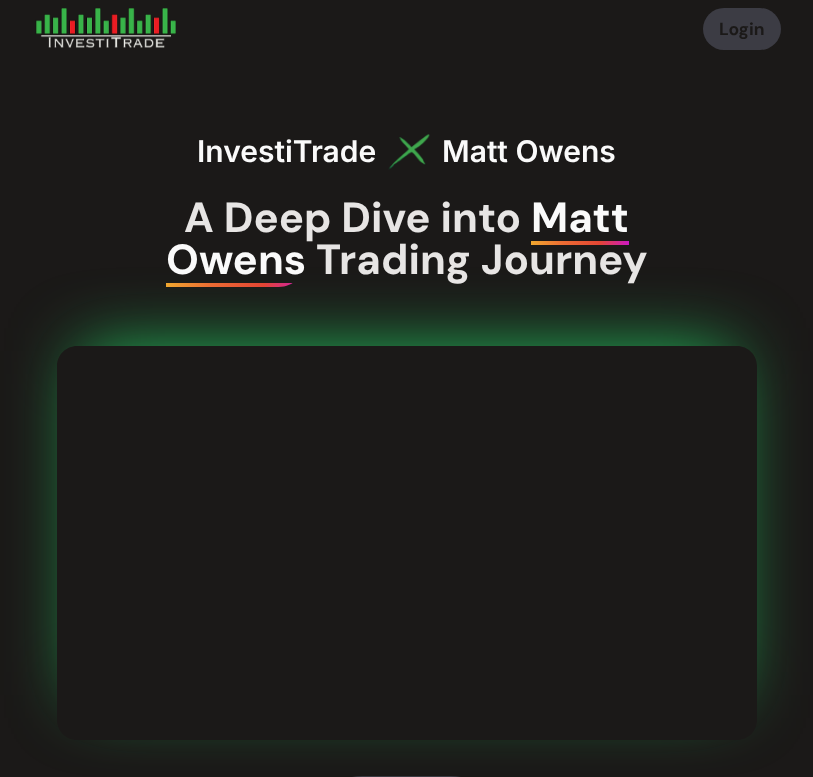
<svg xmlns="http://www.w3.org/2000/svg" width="813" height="777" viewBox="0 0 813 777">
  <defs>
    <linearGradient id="g1" gradientUnits="userSpaceOnUse" x1="531" y1="243" x2="629" y2="243"><stop offset="0" stop-color="#f0a72f"/><stop offset="0.32" stop-color="#ec6c33"/><stop offset="0.7" stop-color="#e34534"/><stop offset="1" stop-color="#cd18c2"/></linearGradient>
    <clipPath id="clip1"><path d="M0 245H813V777H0ZM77 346H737C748 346 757 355 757 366V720C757 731 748 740 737 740H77C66 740 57 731 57 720V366C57 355 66 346 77 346Z" clip-rule="evenodd"/></clipPath>
    <clipPath id="clip2"><path d="M166 232H278.5C293.5 232 306 244.5 306 259.5C306 274.5 293.5 287 278.5 287H166Z"/></clipPath>
    <linearGradient id="g2" gradientUnits="userSpaceOnUse" x1="166" y1="285" x2="306" y2="285"><stop offset="0" stop-color="#f0a72f"/><stop offset="0.32" stop-color="#ec6c33"/><stop offset="0.7" stop-color="#e34534"/><stop offset="1" stop-color="#cd18c2"/></linearGradient>
  </defs>
  <rect width="100%" height="100%" fill="#1b1918"/>
  <image x="35" y="8" width="141" height="40" href="img/1.png"/>
  <rect x="703" y="8" width="78" height="42" rx="21" fill="#3c3c44"/>
  <image x="388" y="134" width="42" height="36" href="img/2.png"/>
  <path d="M531 241h98v4H531z" fill="url(#g1)"/>
  <g clip-path="url(#clip1)">
    <path d="M82 351h650v344H82z" fill="#22c55e" filter="blur(35px)"/>
  </g>
  <g clip-path="url(#clip2)">
    <path d="M166 283h127v4H166z" fill="url(#g2)"/>
  </g>
  <rect x="332" y="776" width="149" height="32" rx="30.5" fill="#3c3c44"/>
  <text x="719" y="35" font-family="DM Sans" font-size="17.5" font-weight="bold" fill="#1b1918">Login</text>
  <g font-family="Inter" font-size="30" font-weight="600" fill="#fafafa">
    <text x="197" y="162">InvestiTrade</text>
    <text x="442" y="162">Matt Owens</text>
  </g>
  <text x="184" y="232" font-family="DM Sans" font-size="42" font-weight="bold" fill="#e7e5e4">A Deep Dive into</text>
  <g font-family="DM Sans" font-size="42" font-weight="bold" fill="#fafafa">
    <text x="531" y="232">Matt</text>
    <text x="166" y="274">Owens</text>
  </g>
  <text x="316" y="274" font-family="DM Sans" font-size="42" font-weight="bold" fill="#e7e5e4">Trading Journey</text>
</svg>
